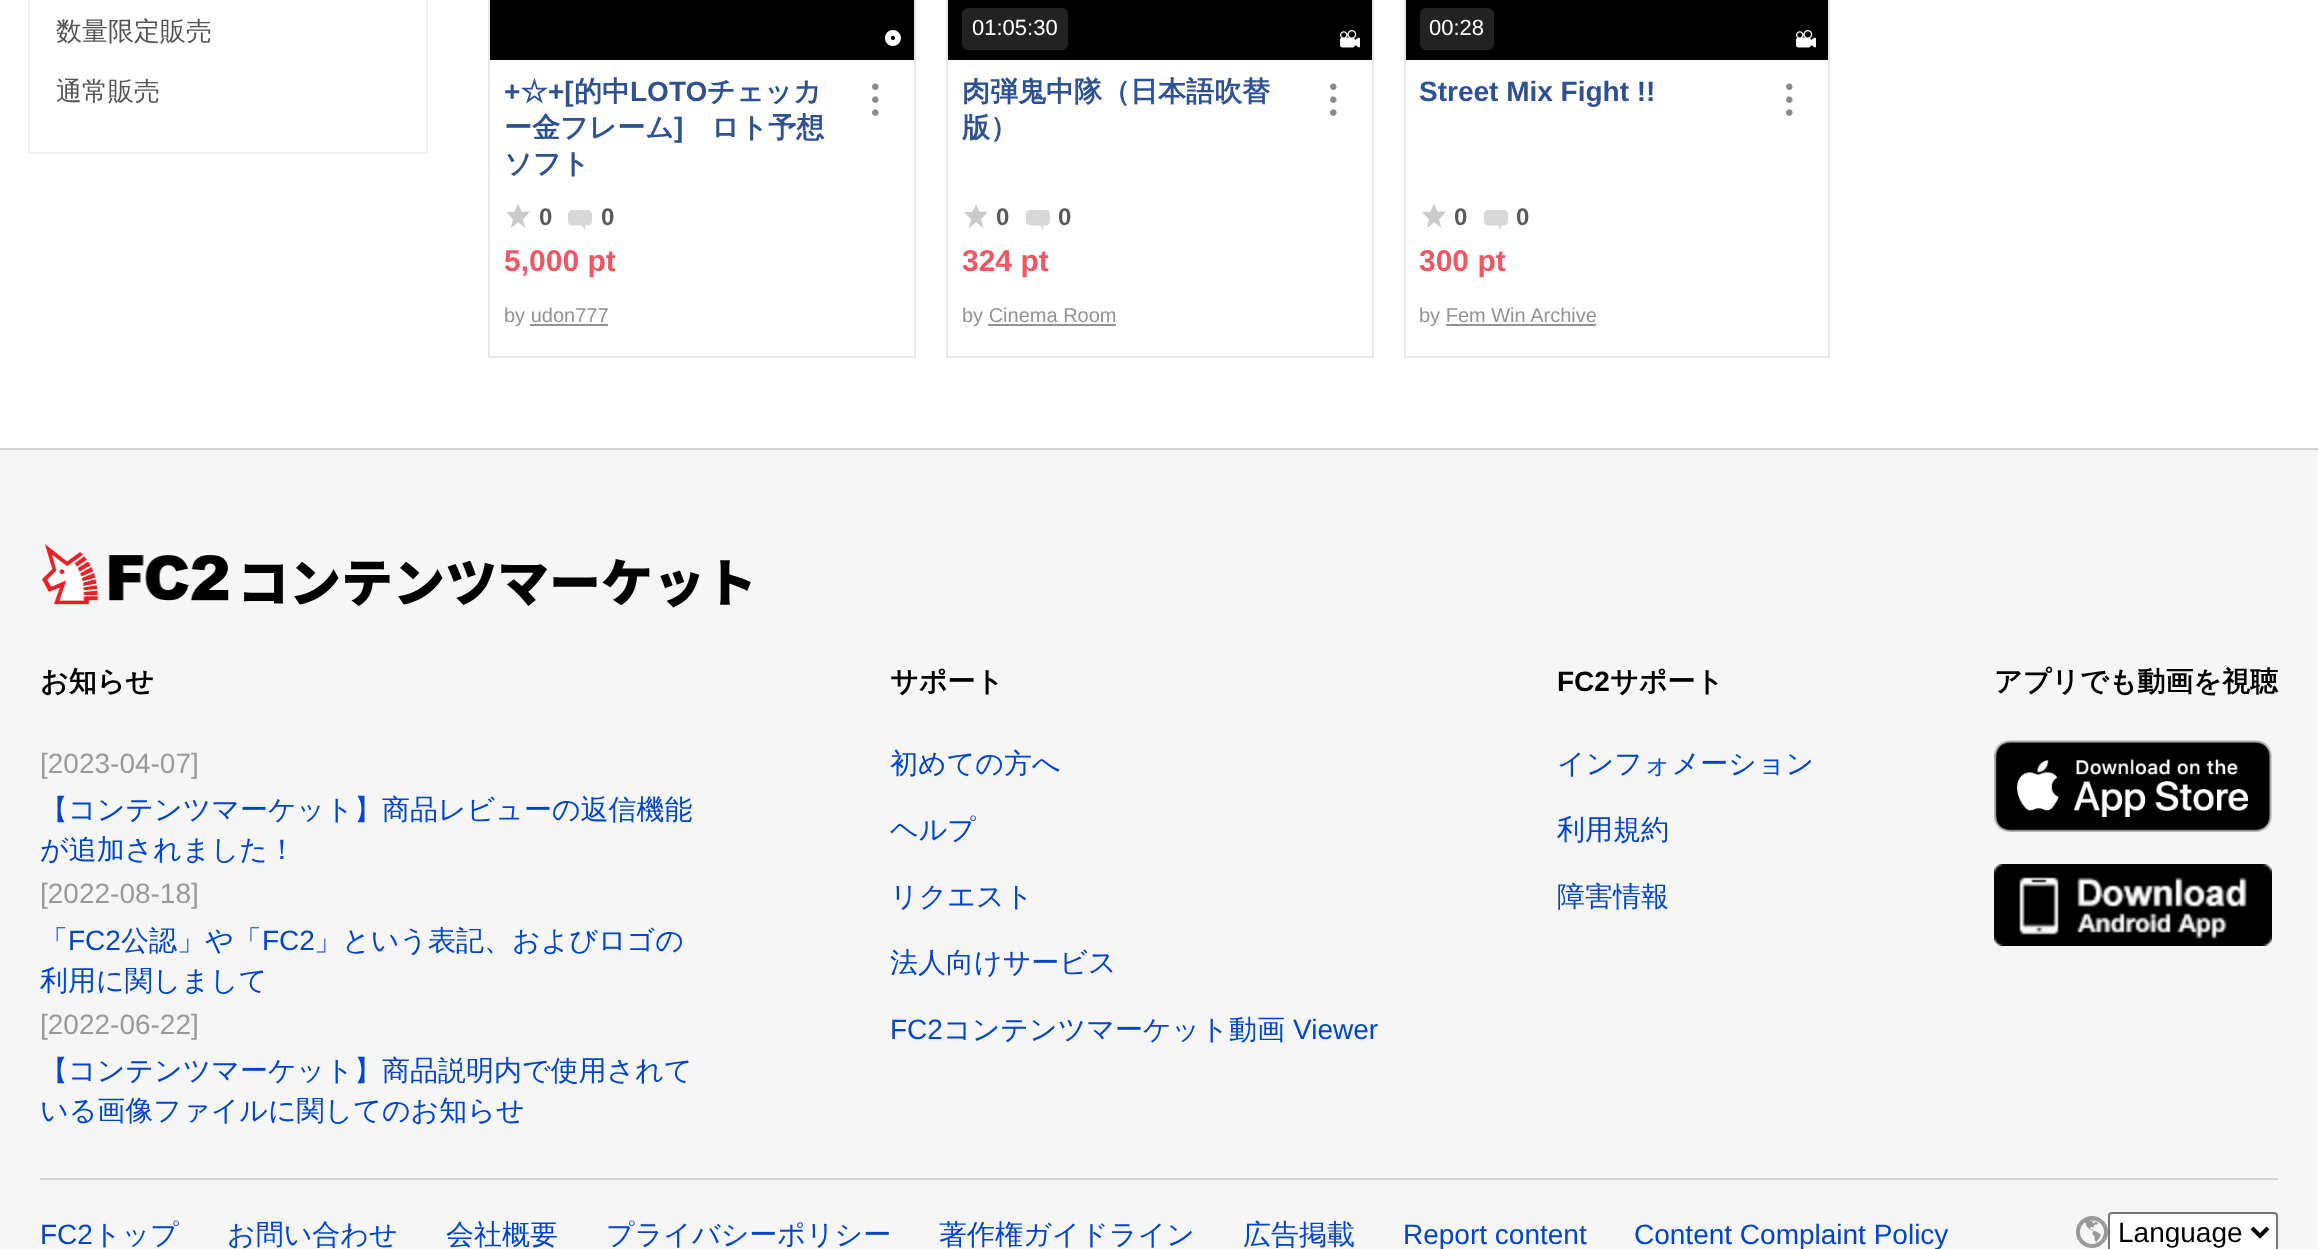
<svg xmlns="http://www.w3.org/2000/svg" width="2318" height="1249" viewBox="0 0 2318 1249">
  <rect width="100%" height="100%" fill="#fff"/>
  <path d="M29 -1h398v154H29z" fill="none" stroke="#efefef" stroke-width="2"/>
  <path d="M489 -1h426v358H489z" fill="none" stroke="#e7e7e7" stroke-width="2"/>
  <path d="M490 0h424v60H490z" fill="#000"/>
  <image x="884" y="30" width="17" height="16" href="img/1.png"/>
  <image x="872" y="83" width="7" height="33" href="img/2.png"/>
  <image x="506" y="204" width="24" height="24" href="img/3.png"/>
  <image x="568" y="210" width="24" height="20" href="img/4.png"/>
  <path d="M530 324h78v2H530z" fill="#929292"/>
  <path d="M947 -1h426v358H947z" fill="none" stroke="#e7e7e7" stroke-width="2"/>
  <path d="M948 0h424v60H948z" fill="#000"/>
  <rect x="962" y="8" width="106" height="42" rx="6" fill="#222"/>
  <image x="1340" y="30" width="20" height="18" href="img/5.png"/>
  <image x="1330" y="83" width="7" height="33" href="img/2.png"/>
  <image x="964" y="204" width="24" height="24" href="img/3.png"/>
  <image x="1026" y="210" width="24" height="20" href="img/4.png"/>
  <path d="M988 324h128v2H988z" fill="#929292"/>
  <path d="M1405 -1h424v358H1405z" fill="none" stroke="#e7e7e7" stroke-width="2"/>
  <path d="M1406 0h422v60H1406z" fill="#000"/>
  <rect x="1420" y="8" width="74" height="42" rx="6" fill="#222"/>
  <image x="1796" y="30" width="20" height="18" href="img/5.png"/>
  <image x="1786" y="83" width="7" height="33" href="img/2.png"/>
  <image x="1422" y="204" width="24" height="24" href="img/3.png"/>
  <image x="1484" y="210" width="24" height="20" href="img/4.png"/>
  <path d="M1446 324h150v2H1446z" fill="#929292"/>
  <path d="M0 450h2318v799H0z" fill="#f6f6f6"/>
  <path d="M0 448h2318v2H0z" fill="#d4d4d4"/>
  <path d="M40 1178h2238v2H40z" fill="#d4d4d4"/>
  <image x="42" y="544" width="187" height="61" href="img/6.png"/>
  <image x="1994" y="740" width="278" height="92" href="img/7.png"/>
  <image x="1994" y="864" width="278" height="82" href="img/8.png"/>
  <image x="2076" y="1216" width="32" height="32" href="img/9.png"/>
  <rect x="2109" y="1213" width="168" height="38" rx="3" fill="#fff" stroke="#767676" stroke-width="2"/>
  <path d="M2252 1228L2260 1236L2268 1228" fill="none" stroke="#000" stroke-width="4"/>
  <g font-family="WenQuanYi Zen Hei" font-size="26" font-weight="500" fill="#535353">
    <text x="56" y="40">数量限定販売</text>
    <text x="56" y="100">通常販売</text>
  </g>
  <text x="504" y="101" font-family="Liberation Sans" font-size="28" font-weight="bold" fill="#2e5192">+</text>
  <text x="520" y="101" font-family="WenQuanYi Zen Hei" font-size="28" font-weight="bold" fill="#2e5192">☆</text>
  <text x="548" y="101" font-family="Liberation Sans" font-size="28" font-weight="bold" fill="#2e5192">+[</text>
  <text x="574" y="101" font-family="WenQuanYi Zen Hei" font-size="28" font-weight="bold" fill="#2e5192">的中</text>
  <text x="630" y="101" font-family="Liberation Sans" font-size="28" font-weight="bold" fill="#2e5192">LOTO</text>
  <g font-family="WenQuanYi Zen Hei" font-size="28" font-weight="bold" fill="#2e5192">
    <text x="707" y="101">チェッカ</text>
    <text x="504" y="137">ー金フレーム</text>
  </g>
  <text x="674" y="137" font-family="Liberation Sans" font-size="28" font-weight="bold" fill="#2e5192">]</text>
  <g font-family="WenQuanYi Zen Hei" font-size="28" font-weight="bold" fill="#2e5192">
    <text x="711" y="137">ロト予想</text>
    <text x="504" y="173">ソフト</text>
  </g>
  <g font-family="Liberation Sans" font-size="24" font-weight="bold" fill="#595959">
    <text x="539" y="225">0</text>
    <text x="601" y="225">0</text>
  </g>
  <text x="504" y="271" font-family="Liberation Sans" font-size="30" font-weight="bold" fill="#ef5763">5,000 pt</text>
  <text x="504" y="322" font-family="Liberation Sans" font-size="20" fill="#929292">by udon777</text>
  <text x="972" y="35" font-family="Liberation Sans" font-size="22" fill="#fff">01:05:30</text>
  <g font-family="WenQuanYi Zen Hei" font-size="28" font-weight="bold" fill="#2e5192">
    <text x="962" y="101">肉弾鬼中隊（日本語吹替</text>
    <text x="962" y="137">版）</text>
  </g>
  <g font-family="Liberation Sans" font-size="24" font-weight="bold" fill="#595959">
    <text x="996" y="225">0</text>
    <text x="1058" y="225">0</text>
  </g>
  <text x="962" y="271" font-family="Liberation Sans" font-size="30" font-weight="bold" fill="#ef5763">324 pt</text>
  <text x="962" y="322" font-family="Liberation Sans" font-size="20" fill="#929292">by Cinema Room</text>
  <text x="1429" y="35" font-family="Liberation Sans" font-size="22" fill="#fff">00:28</text>
  <text x="1419" y="101" font-family="Liberation Sans" font-size="28" font-weight="bold" fill="#2e5192">Street Mix Fight !!</text>
  <g font-family="Liberation Sans" font-size="24" font-weight="bold" fill="#595959">
    <text x="1454" y="225">0</text>
    <text x="1516" y="225">0</text>
  </g>
  <text x="1419" y="271" font-family="Liberation Sans" font-size="30" font-weight="bold" fill="#ef5763">300 pt</text>
  <text x="1419" y="322" font-family="Liberation Sans" font-size="20" fill="#929292">by Fem Win Archive</text>
  <text x="237" y="602" font-family="'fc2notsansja'" font-size="52" font-weight="900" fill="#000">コンテンツマーケット</text>
  <text x="40" y="691" font-family="WenQuanYi Zen Hei" font-size="28" font-weight="bold" fill="#000">お知らせ</text>
  <text x="40" y="773" font-family="Liberation Sans" font-size="28" fill="#999">[2023-04-07]</text>
  <g font-family="WenQuanYi Zen Hei" font-size="28" font-weight="500" fill="#04c">
    <text x="40" y="819">【コンテンツマーケット】商品レビューの返信機能</text>
    <text x="40" y="859">が追加されました！</text>
  </g>
  <text x="40" y="903" font-family="Liberation Sans" font-size="28" fill="#999">[2022-08-18]</text>
  <text x="40" y="950" font-family="WenQuanYi Zen Hei" font-size="28" font-weight="500" fill="#04c">「</text>
  <text x="68" y="950" font-family="Liberation Sans" font-size="28" fill="#04c">FC2</text>
  <text x="121" y="950" font-family="WenQuanYi Zen Hei" font-size="28" font-weight="500" fill="#04c">公認」や「</text>
  <text x="262" y="950" font-family="Liberation Sans" font-size="28" fill="#04c">FC2</text>
  <g font-family="WenQuanYi Zen Hei" font-size="28" font-weight="500" fill="#04c">
    <text x="314" y="950">」という表記、およびロゴの</text>
    <text x="40" y="990">利用に関しまして</text>
  </g>
  <text x="40" y="1034" font-family="Liberation Sans" font-size="28" fill="#999">[2022-06-22]</text>
  <g font-family="WenQuanYi Zen Hei" font-size="28" font-weight="500" fill="#04c">
    <text x="40" y="1080">【コンテンツマーケット】商品説明内で使用されて</text>
    <text x="40" y="1120">いる画像ファイルに関してのお知らせ</text>
  </g>
  <text x="890" y="691" font-family="WenQuanYi Zen Hei" font-size="28" font-weight="bold" fill="#000">サポート</text>
  <g font-family="WenQuanYi Zen Hei" font-size="28" font-weight="500" fill="#04c">
    <text x="890" y="773">初めての方へ</text>
    <text x="890" y="839">ヘルプ</text>
    <text x="890" y="906">リクエスト</text>
    <text x="890" y="972">法人向けサービス</text>
  </g>
  <text x="890" y="1039" font-family="Liberation Sans" font-size="28" fill="#04c">FC2</text>
  <text x="943" y="1039" font-family="WenQuanYi Zen Hei" font-size="28" font-weight="500" fill="#04c">コンテンツマーケット動画</text>
  <text x="1293" y="1039" font-family="Liberation Sans" font-size="28" fill="#04c">Viewer</text>
  <text x="1557" y="691" font-family="Liberation Sans" font-size="28" font-weight="bold" fill="#000">FC2</text>
  <text x="1610" y="691" font-family="WenQuanYi Zen Hei" font-size="28" font-weight="bold" fill="#000">サポート</text>
  <g font-family="WenQuanYi Zen Hei" font-size="28" font-weight="500" fill="#04c">
    <text x="1557" y="773">インフォメーション</text>
    <text x="1557" y="839">利用規約</text>
    <text x="1557" y="906">障害情報</text>
  </g>
  <text x="1994" y="691" font-family="WenQuanYi Zen Hei" font-size="28" font-weight="bold" fill="#000">アプリでも動画を視聴</text>
  <text x="40" y="1244" font-family="Liberation Sans" font-size="28" fill="#04c">FC2</text>
  <g font-family="WenQuanYi Zen Hei" font-size="28" font-weight="500" fill="#04c">
    <text x="93" y="1244">トップ</text>
    <text x="227" y="1244">お問い合わせ</text>
    <text x="446" y="1244">会社概要</text>
    <text x="606" y="1244">プライバシーポリシー</text>
    <text x="939" y="1244">著作権ガイドライン</text>
    <text x="1243" y="1244">広告掲載</text>
  </g>
  <g font-family="Liberation Sans" font-size="28" fill="#04c">
    <text x="1403" y="1244">Report content</text>
    <text x="1634" y="1244">Content Complaint Policy</text>
  </g>
  <text x="2118" y="1242" font-family="Liberation Sans" font-size="28" fill="#000">Language</text>
</svg>
